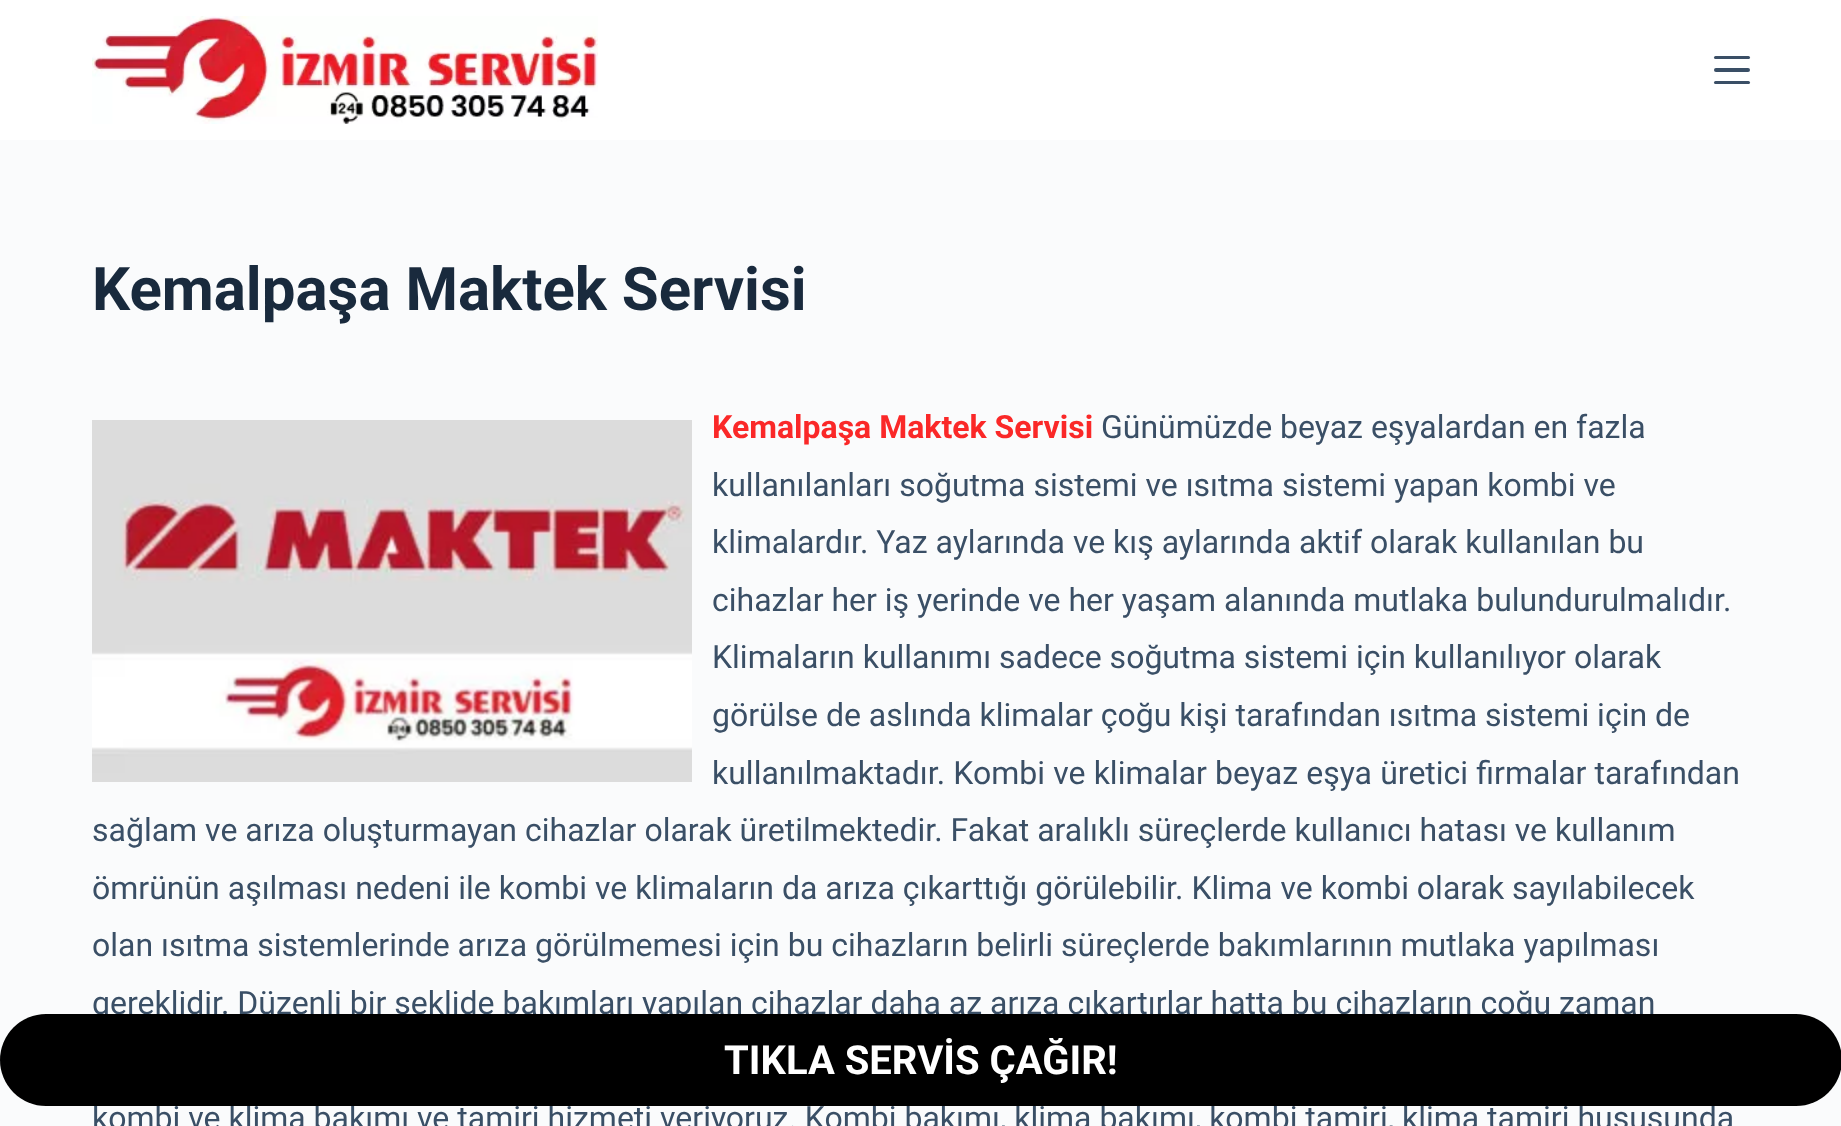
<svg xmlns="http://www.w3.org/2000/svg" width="1841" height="1126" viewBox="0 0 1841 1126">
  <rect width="100%" height="100%" fill="#fafbfc"/>
  <path d="M0 0h1841v140H0z" fill="#fff"/>
  <image x="92" y="16" width="506" height="108" href="img/1.png"/>
  <rect x="1714" y="56" width="36" height="3" rx="1.5" fill="#3a4f66"/>
  <rect x="1714" y="68" width="36" height="4" rx="2" fill="#3a4f66"/>
  <rect x="1714" y="81" width="36" height="3" rx="1.5" fill="#3a4f66"/>
  <image x="92" y="420" width="600" height="362" href="img/2.png"/>
  <text x="92" y="310" font-family="Roboto" font-size="60" font-weight="bold" fill="#192a3d">Kemalpaşa Maktek Servisi</text>
  <text x="712" y="438" font-family="Roboto" font-size="32" font-weight="bold" fill="#fa2828">Kemalpaşa Maktek Servisi</text>
  <g font-family="Roboto" font-size="32" fill="#3a4f66">
    <text x="1101" y="438">Günümüzde beyaz eşyalardan en fazla</text>
    <text x="712" y="496">kullanılanları soğutma sistemi ve ısıtma sistemi yapan kombi ve</text>
    <text x="712" y="553">klimalardır. Yaz aylarında ve kış aylarında aktif olarak kullanılan bu</text>
    <text x="712" y="611">cihazlar her iş yerinde ve her yaşam alanında mutlaka bulundurulmalıdır.</text>
    <text x="712" y="668">Klimaların kullanımı sadece soğutma sistemi için kullanılıyor olarak</text>
    <text x="712" y="726">görülse de aslında klimalar çoğu kişi tarafından ısıtma sistemi için de</text>
    <text x="712" y="784" word-spacing="0.25">kullanılmaktadır. Kombi ve klimalar beyaz eşya üretici firmalar tarafından</text>
    <text x="92" y="841">sağlam ve arıza oluşturmayan cihazlar olarak üretilmektedir. Fakat aralıklı süreçlerde kullanıcı hatası ve kullanım</text>
    <text x="92" y="899">ömrünün aşılması nedeni ile kombi ve klimaların da arıza çıkarttığı görülebilir. Klima ve kombi olarak sayılabilecek</text>
    <text x="92" y="956">olan ısıtma sistemlerinde arıza görülmemesi için bu cihazların belirli süreçlerde bakımlarının mutlaka yapılması</text>
    <text x="92" y="1014">gereklidir. Düzenli bir şeklide bakımları yapılan cihazlar daha az arıza çıkartırlar hatta bu cihazların çoğu zaman</text>
    <text x="92" y="1129">kombi ve klima bakımı ve tamiri hizmeti veriyoruz. Kombi bakımı, klima bakımı, kombi tamiri, klima tamiri hususunda</text>
  </g>
  <rect y="1014" width="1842" height="92" rx="46" fill="#000"/>
  <text x="724" y="1074" font-family="Roboto" font-size="40" font-weight="bold" fill="#fff">TIKLA SERVİS ÇAĞIR!</text>
</svg>
